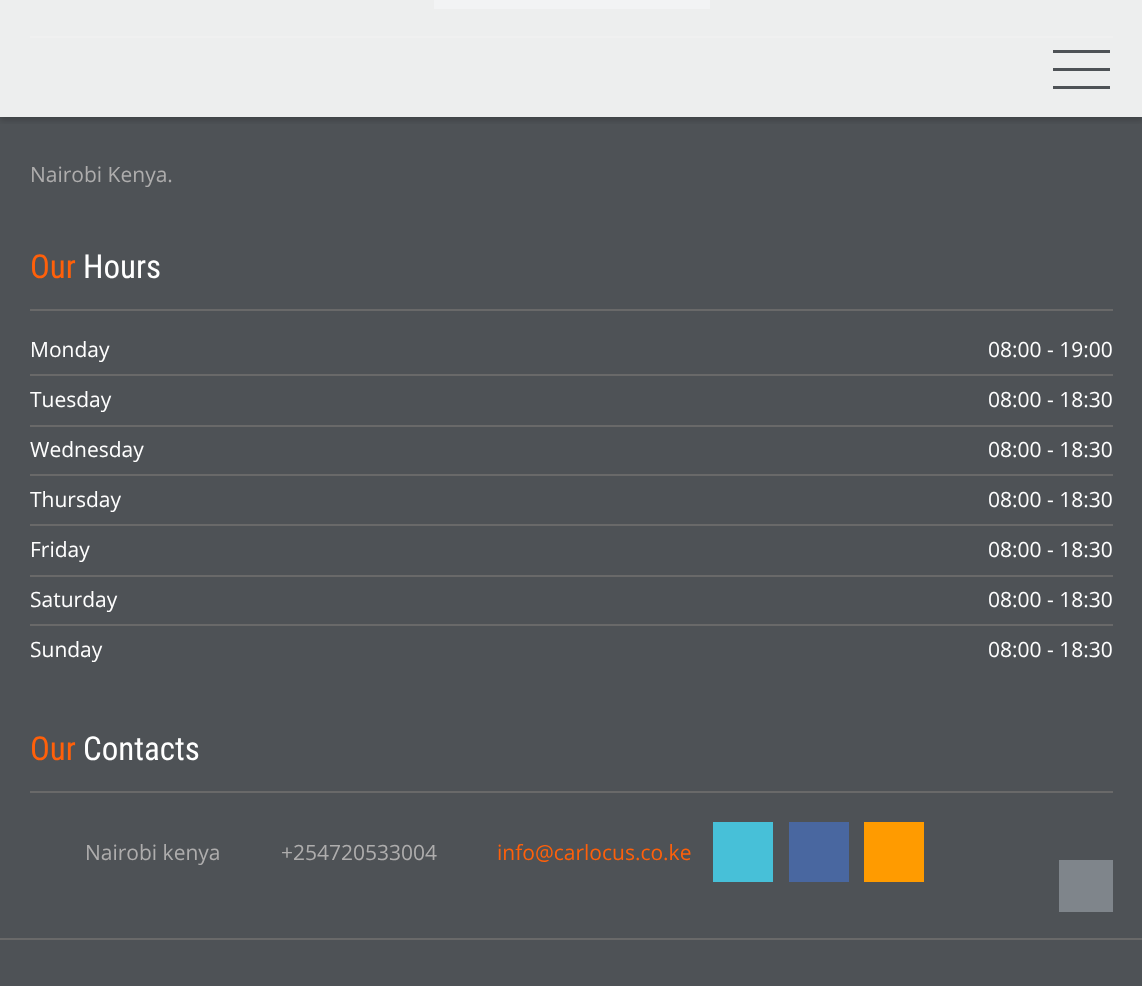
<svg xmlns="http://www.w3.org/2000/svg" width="1142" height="986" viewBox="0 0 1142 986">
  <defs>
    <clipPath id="clip1"><path d="M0 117h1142v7H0z"/></clipPath>
  </defs>
  <rect width="100%" height="100%" fill="#4e5256"/>
  <path d="M434 0h276v9H434z" fill="#7f858b"/>
  <path d="M30 36h1083v2H30z" fill="#696969"/>
  <g clip-path="url(#clip1)">
    <path d="M0 3h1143v117H0z" fill="#00000033" filter="blur(3px)"/>
  </g>
  <path d="M0 0h1142v117H0z" fill="#ffffffe6"/>
  <path d="M1053 50h57v3H1053z" fill="#4e5256"/>
  <path d="M1053 68h57v3H1053z" fill="#4e5256"/>
  <path d="M1053 86h57v3H1053z" fill="#4e5256"/>
  <path d="M30 309h1083v2H30z" fill="#696969"/>
  <path d="M30 374h1083v2H30z" fill="#696969"/>
  <path d="M30 425h1083v2H30z" fill="#696969"/>
  <path d="M30 474h1083v2H30z" fill="#696969"/>
  <path d="M30 524h1083v2H30z" fill="#696969"/>
  <path d="M30 575h1083v2H30z" fill="#696969"/>
  <path d="M30 624h1083v2H30z" fill="#696969"/>
  <path d="M30 791h1083v2H30z" fill="#696969"/>
  <path d="M713 822h60v60H713z" fill="#47c0d8"/>
  <path d="M789 822h60v60H789z" fill="#4967a0"/>
  <path d="M864 822h60v60H864z" fill="#ff9b00"/>
  <path d="M0 938h1142v2H0z" fill="#696969"/>
  <path d="M1059 860h54v52H1059z" fill="#7f858b"/>
  <text x="30" y="182" font-family="Open Sans" font-size="21" fill="#aeadad">Nairobi Kenya.</text>
  <text x="30" y="278" font-family="Roboto Condensed" font-size="33" fill="#ff600a">Our</text>
  <text x="83" y="278" font-family="Roboto Condensed" font-size="33" fill="#fff">Hours</text>
  <g font-family="Open Sans" font-size="21" fill="#fff">
    <text x="30" y="357">Monday</text>
    <text x="988" y="357">08:00 - 19:00</text>
    <text x="30" y="407">Tuesday</text>
    <text x="988" y="407">08:00 - 18:30</text>
    <text x="30" y="457">Wednesday</text>
    <text x="988" y="457">08:00 - 18:30</text>
    <text x="30" y="507">Thursday</text>
    <text x="988" y="507">08:00 - 18:30</text>
    <text x="30" y="557">Friday</text>
    <text x="988" y="557">08:00 - 18:30</text>
    <text x="30" y="607">Saturday</text>
    <text x="988" y="607">08:00 - 18:30</text>
    <text x="30" y="657">Sunday</text>
    <text x="988" y="657">08:00 - 18:30</text>
  </g>
  <text x="30" y="760" font-family="Roboto Condensed" font-size="33" fill="#ff600a">Our</text>
  <text x="83" y="760" font-family="Roboto Condensed" font-size="33" fill="#fff">Contacts</text>
  <g font-family="Open Sans" font-size="21" fill="#aeadad">
    <text x="85" y="860">Nairobi kenya</text>
    <text x="281" y="860">+254720533004</text>
  </g>
  <text x="497" y="860" font-family="Open Sans" font-size="21" fill="#ff600a">info@carlocus.co.ke</text>
</svg>
